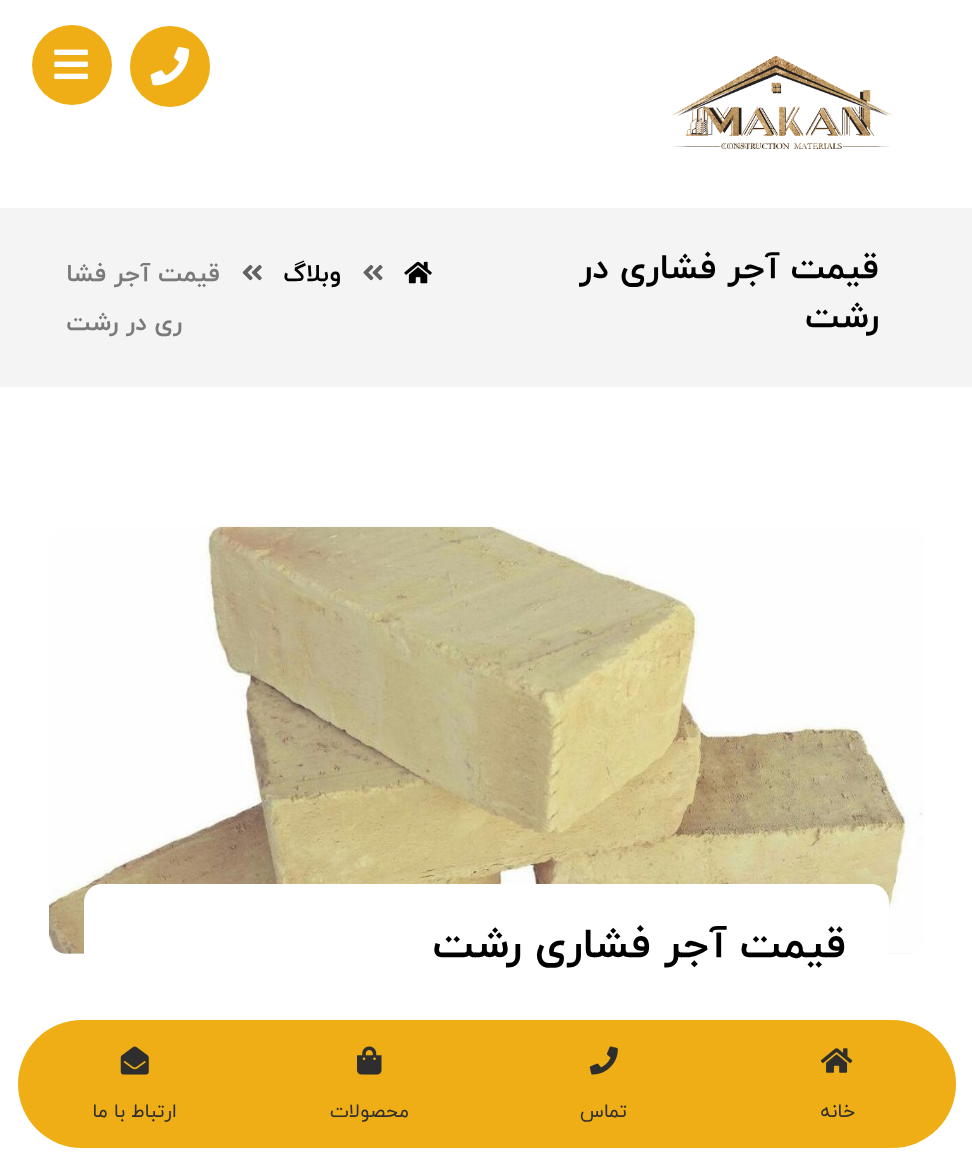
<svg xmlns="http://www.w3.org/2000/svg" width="972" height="1165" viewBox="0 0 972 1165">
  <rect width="100%" height="100%" fill="#fff"/>
  <image x="672" y="55" width="220" height="94" href="img/1.png"/>
  <rect x="130" y="26" width="80" height="81" rx="40" fill="#efae16"/>
  <image x="150" y="46" width="40" height="40" href="img/2.png"/>
  <circle cx="72" cy="65" r="40" fill="#efae16"/>
  <image x="54" y="49" width="34" height="31" href="img/3.png"/>
  <path d="M0 208h972v179H0z" fill="#f4f4f4"/>
  <image x="404" y="261" width="28" height="23" href="img/4.png"/>
  <image x="363" y="264" width="20" height="17" href="img/5.png"/>
  <image x="242" y="264" width="20" height="17" href="img/6.png"/>
  <rect x="49" y="527" width="875" height="427" rx="18" fill="#eee"/>
  <image x="49" y="526" width="875" height="428" href="img/7.png"/>
  <rect x="84" y="884" width="805" height="129" rx="18" fill="#fff"/>
  <rect x="18" y="1020" width="938" height="128" rx="64" fill="#efae16"/>
  <image x="820" y="1048" width="33" height="25" href="img/8.png"/>
  <image x="589" y="1046" width="29" height="29" href="img/9.png"/>
  <image x="357" y="1046" width="25" height="29" href="img/10.png"/>
  <image x="120" y="1046" width="29" height="29" href="img/11.png"/>
  <g font-family="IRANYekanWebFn" font-size="35" font-weight="bold" direction="rtl" fill="#000">
    <text x="879" y="278">قیمت آجر فشاری در</text>
    <text x="879" y="327">رشت</text>
  </g>
  <text x="341" y="281" font-family="IRANYekanWebFn" font-size="24.5" font-weight="bold" direction="rtl" fill="#000">وبلاگ</text>
  <g font-family="IRANYekanWebFn" font-size="24.5" font-weight="bold" direction="rtl" fill="#7a7a7a">
    <text x="220" y="281">قیمت آجر فشا</text>
    <text x="182" y="330">ری در رشت</text>
  </g>
  <text x="846" y="957" font-family="IRANYekanWebFn" font-size="42" font-weight="bold" direction="rtl" fill="#000">قیمت آجر فشاری رشت</text>
  <g font-family="IRANYekanWebFn" font-size="19.25" direction="rtl" fill="#2e2e2e">
    <text x="855" y="1117">خانه</text>
    <text x="627" y="1117">تماس</text>
    <text x="409" y="1117">محصولات</text>
    <text x="177" y="1117">ارتباط با ما</text>
  </g>
</svg>
